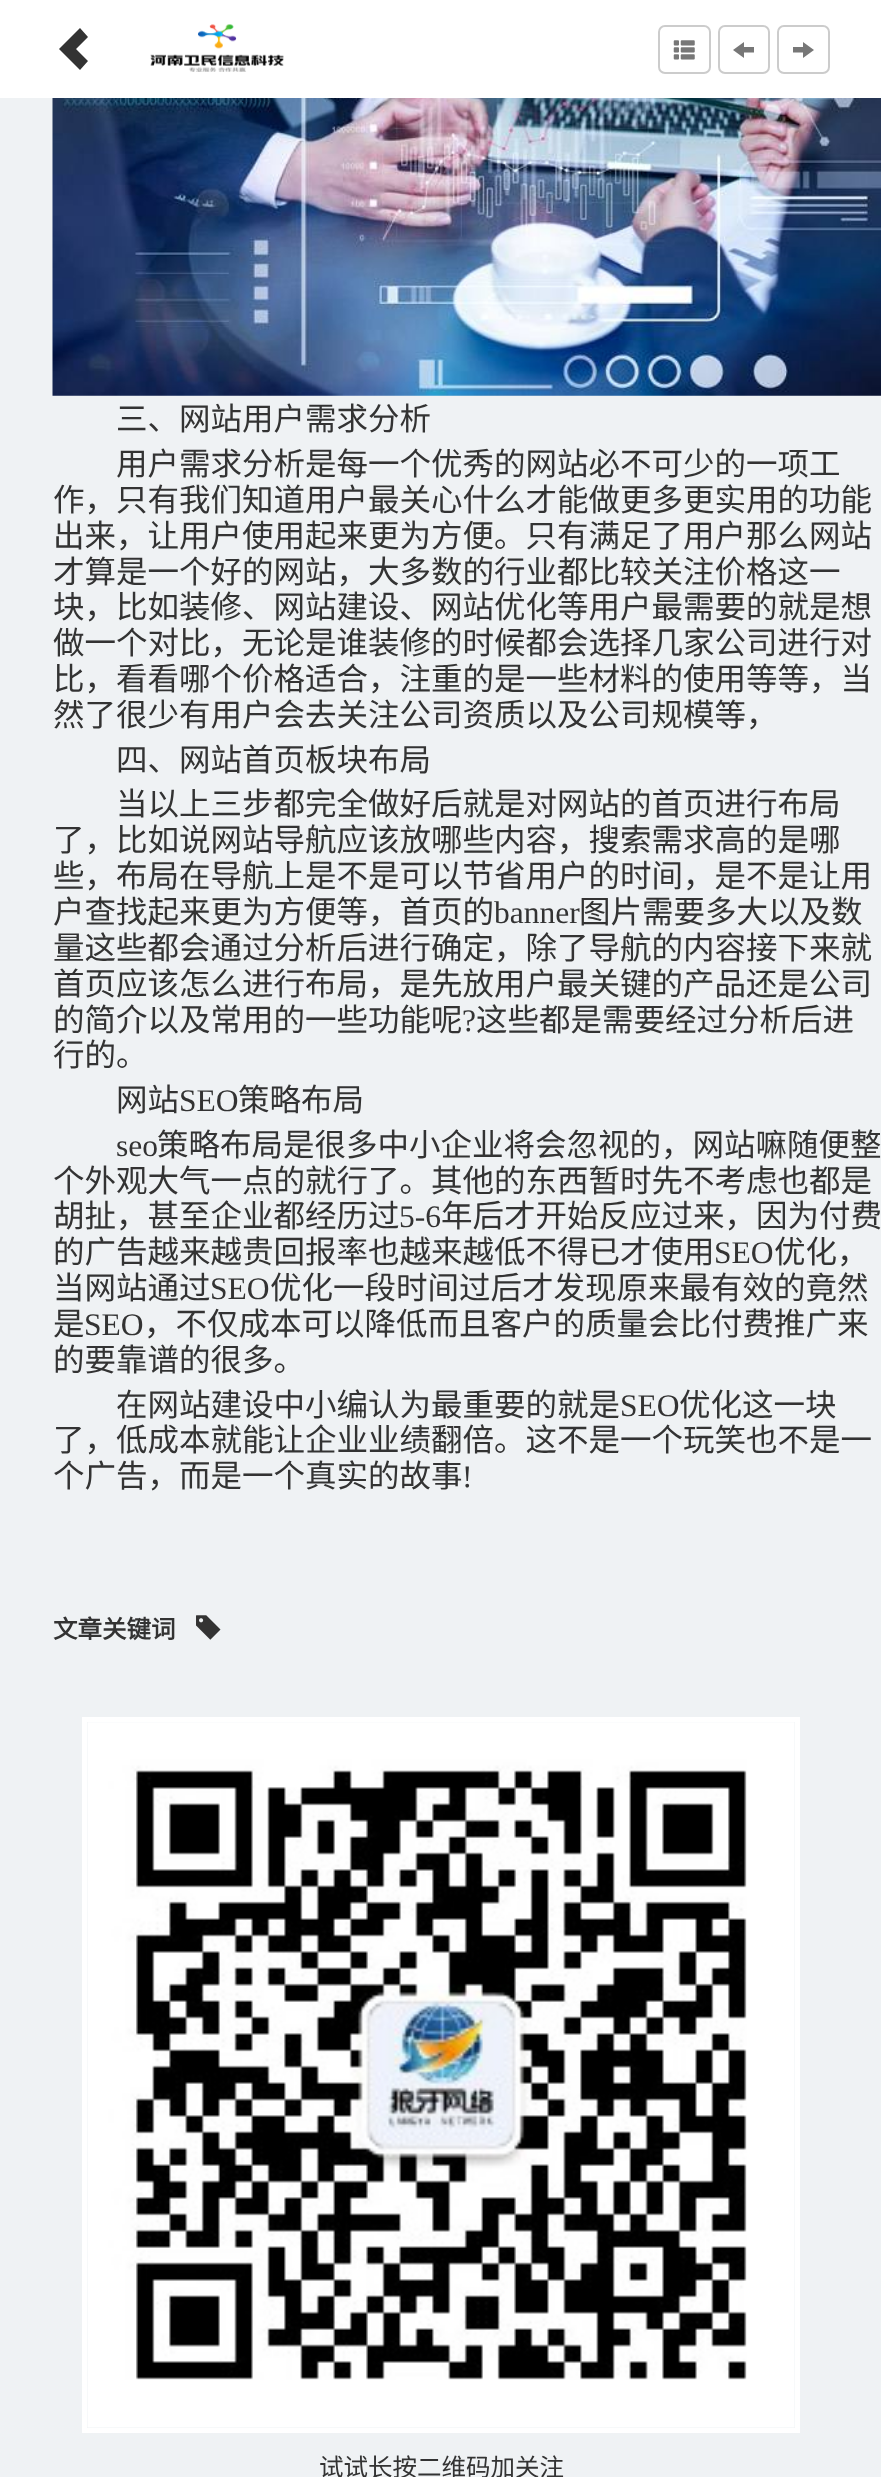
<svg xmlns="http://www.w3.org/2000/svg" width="881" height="2477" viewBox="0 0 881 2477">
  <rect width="100%" height="100%" fill="#eff2f4"/>
  <path d="M0 0h881v98H0z" fill="#fff"/>
  <path d="M59 49L80 70L88 61L76 49L88 37L80 28Z" fill="#333"/>
  <image x="150" y="24" width="134" height="48" href="img/1.png"/>
  <rect x="659" y="26" width="51" height="47" rx="6" fill="none" stroke="#ccc" stroke-width="2"/>
  <image x="673" y="40" width="22" height="20" href="img/2.png"/>
  <rect x="719" y="26" width="50" height="47" rx="6" fill="none" stroke="#ccc" stroke-width="2"/>
  <path d="M733 50L744 42V47H754V52.5H744V58Z" fill="#777"/>
  <rect x="778" y="26" width="51" height="47" rx="6" fill="none" stroke="#ccc" stroke-width="2"/>
  <path d="M793 52.5V47H803V42L814 50L803 58V52.5Z" fill="#777"/>
  <image x="52" y="98" width="829" height="298" href="img/3.png"/>
  <image x="196" y="1615" width="25" height="25" href="img/4.png"/>
  <path d="M84.5 1719.5h713v711H84.5z" fill="none" stroke="#fff" stroke-width="5"/>
  <image x="87" y="1722" width="708" height="706" href="img/5.png"/>
  <g font-family="Noto Sans CJK SC" font-size="31.5" fill="#333">
    <text x="116" y="430">三、网站用户需求分析</text>
    <text x="116" y="475">用户需求分析是每一个优秀的网站必不可少的一项工</text>
    <text x="53" y="511">作，只有我们知道用户最关心什么才能做更多更实用的功能</text>
    <text x="53" y="547">出来，让用户使用起来更为方便。只有满足了用户那么网站</text>
    <text x="53" y="583">才算是一个好的网站，大多数的行业都比较关注价格这一</text>
    <text x="53" y="618">块，比如装修、网站建设、网站优化等用户最需要的就是想</text>
    <text x="53" y="654">做一个对比，无论是谁装修的时候都会选择几家公司进行对</text>
    <text x="53" y="690">比，看看哪个价格适合，注重的是一些材料的使用等等，当</text>
    <text x="53" y="726">然了很少有用户会去关注公司资质以及公司规模等，</text>
    <text x="116" y="771">四、网站首页板块布局</text>
    <text x="116" y="815">当以上三步都完全做好后就是对网站的首页进行布局</text>
    <text x="53" y="851">了，比如说网站导航应该放哪些内容，搜索需求高的是哪</text>
    <text x="53" y="887">些，布局在导航上是不是可以节省用户的时间，是不是让用</text>
    <text x="53" y="923">户查找起来更为方便等，首页的</text>
  </g>
  <text x="494" y="923" font-family="Liberation Serif" font-size="31.5" fill="#333">banner</text>
  <g font-family="Noto Sans CJK SC" font-size="31.5" fill="#333">
    <text x="579" y="923">图片需要多大以及数</text>
    <text x="53" y="959">量这些都会通过分析后进行确定，除了导航的内容接下来就</text>
    <text x="53" y="995">首页应该怎么进行布局，是先放用户最关键的产品还是公司</text>
    <text x="53" y="1031">的简介以及常用的一些功能呢</text>
  </g>
  <text x="462" y="1031" font-family="Liberation Serif" font-size="31.5" fill="#333">?</text>
  <g font-family="Noto Sans CJK SC" font-size="31.5" fill="#333">
    <text x="476" y="1031">这些都是需要经过分析后进</text>
    <text x="53" y="1066">行的。</text>
    <text x="116" y="1111">网站</text>
  </g>
  <text x="179" y="1111" font-family="Liberation Serif" font-size="31.5" fill="#333">SEO</text>
  <text x="238" y="1111" font-family="Noto Sans CJK SC" font-size="31.5" fill="#333">策略布局</text>
  <text x="116" y="1156" font-family="Liberation Serif" font-size="31.5" fill="#333">seo</text>
  <g font-family="Noto Sans CJK SC" font-size="31.5" fill="#333">
    <text x="157" y="1156">策略布局是很多中小企业将会忽视的，网站嘛随便整</text>
    <text x="53" y="1192">个外观大气一点的就行了。其他的东西暂时先不考虑也都是</text>
    <text x="53" y="1227">胡扯，甚至企业都经历过</text>
  </g>
  <text x="399" y="1227" font-family="Liberation Serif" font-size="31.5" fill="#333">5-6</text>
  <g font-family="Noto Sans CJK SC" font-size="31.5" fill="#333">
    <text x="441" y="1227">年后才开始反应过来，因为付费</text>
    <text x="53" y="1263">的广告越来越贵回报率也越来越低不得已才使用</text>
  </g>
  <text x="714" y="1263" font-family="Liberation Serif" font-size="31.5" fill="#333">SEO</text>
  <g font-family="Noto Sans CJK SC" font-size="31.5" fill="#333">
    <text x="774" y="1263">优化，</text>
    <text x="53" y="1299">当网站通过</text>
  </g>
  <text x="210" y="1299" font-family="Liberation Serif" font-size="31.5" fill="#333">SEO</text>
  <g font-family="Noto Sans CJK SC" font-size="31.5" fill="#333">
    <text x="270" y="1299">优化一段时间过后才发现原来最有效的竟然</text>
    <text x="53" y="1335">是</text>
  </g>
  <text x="84" y="1335" font-family="Liberation Serif" font-size="31.5" fill="#333">SEO</text>
  <g font-family="Noto Sans CJK SC" font-size="31.5" fill="#333">
    <text x="144" y="1335">，不仅成本可以降低而且客户的质量会比付费推广来</text>
    <text x="53" y="1371">的要靠谱的很多。</text>
    <text x="116" y="1416">在网站建设中小编认为最重要的就是</text>
  </g>
  <text x="620" y="1416" font-family="Liberation Serif" font-size="31.5" fill="#333">SEO</text>
  <g font-family="Noto Sans CJK SC" font-size="31.5" fill="#333">
    <text x="679" y="1416">优化这一块</text>
    <text x="53" y="1451">了，低成本就能让企业业绩翻倍。这不是一个玩笑也不是一</text>
    <text x="53" y="1487">个广告，而是一个真实的故事</text>
  </g>
  <text x="462" y="1487" font-family="Liberation Serif" font-size="31.5" fill="#333">!</text>
  <text x="53" y="1638" font-family="Noto Sans CJK SC" font-size="24.5" font-weight="bold" fill="#333">文章关键词</text>
  <text x="319" y="2476" font-family="Noto Sans CJK SC" font-size="24.5" fill="#333">试试长按二维码加关注</text>
</svg>
